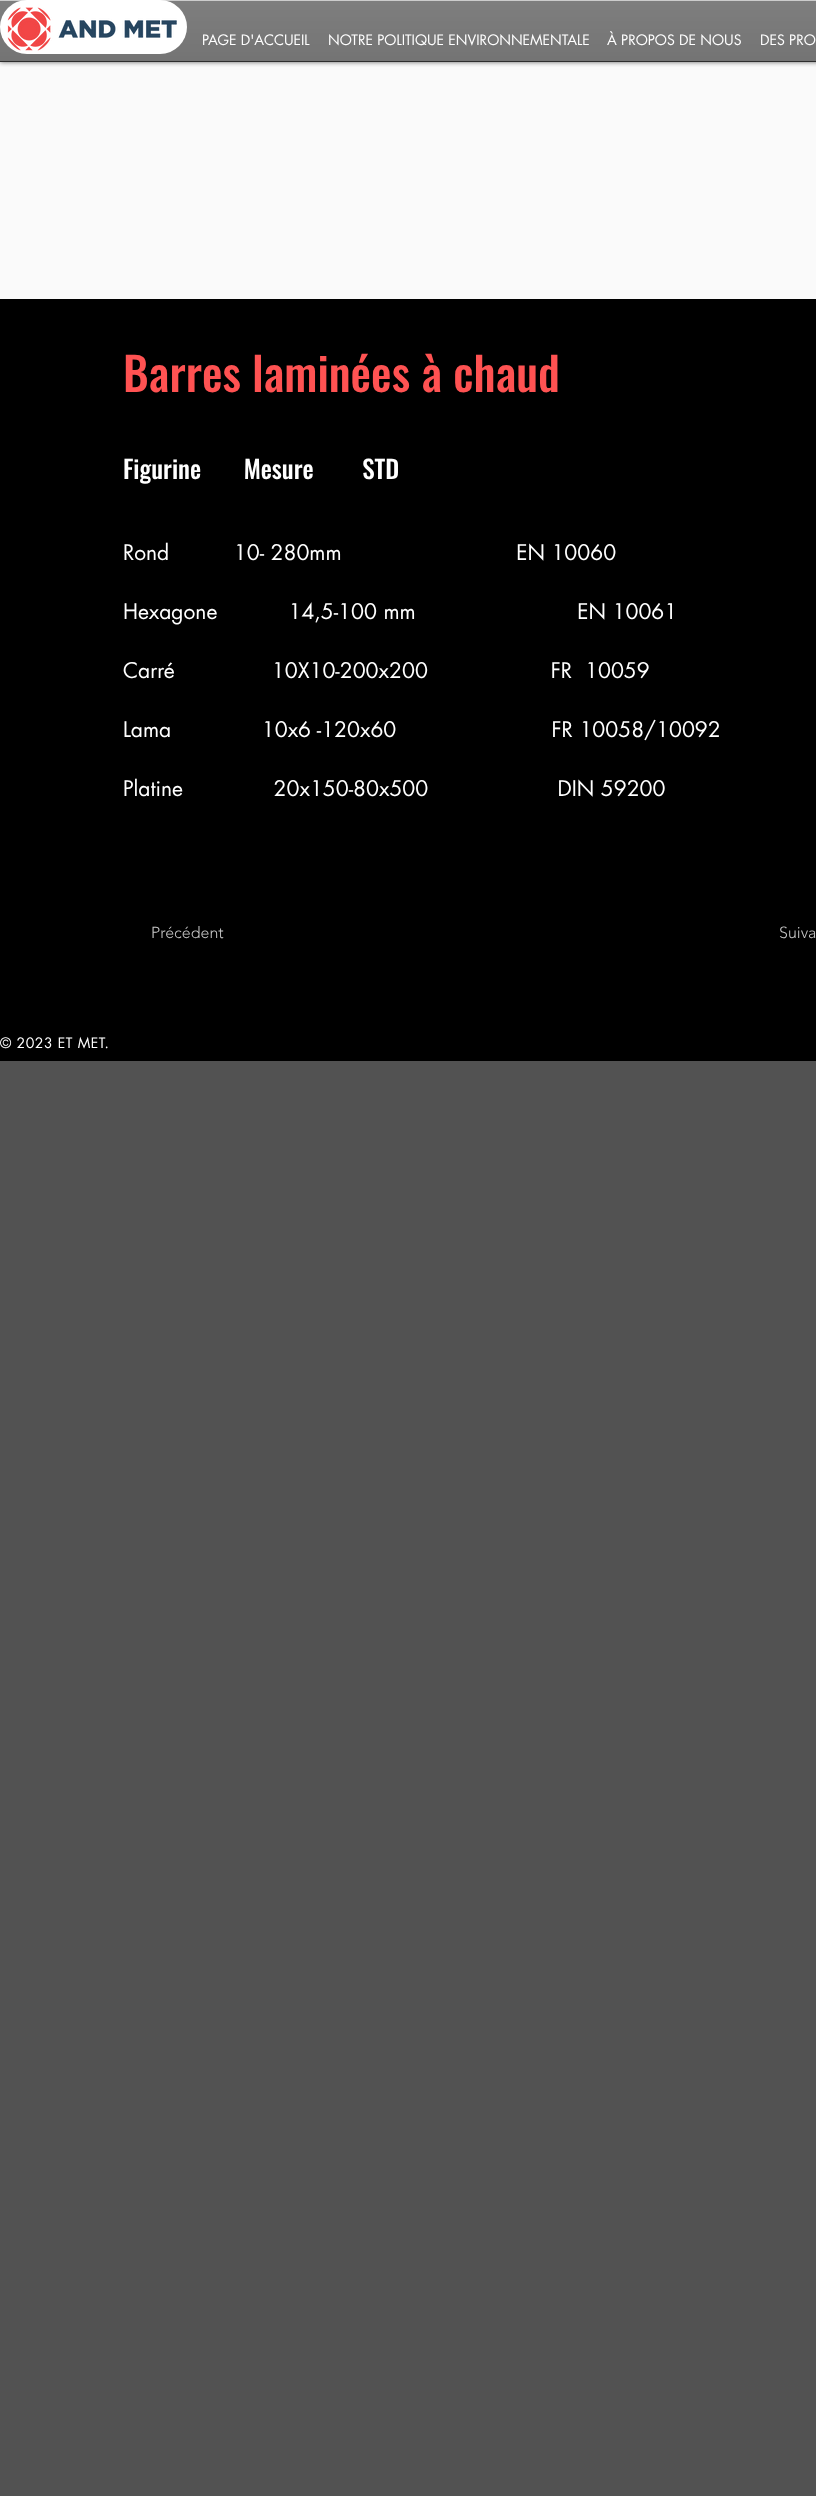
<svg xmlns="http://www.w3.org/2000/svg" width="816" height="2496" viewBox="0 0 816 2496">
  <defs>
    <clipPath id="clip1"><path d="M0 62h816v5H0z"/></clipPath>
  </defs>
  <rect width="100%" height="100%" fill="#525252"/>
  <path d="M0 62h816v237H0z" fill="#fafafa"/>
  <g clip-path="url(#clip1)">
    <path d="M0 0h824v62H0z" fill="#00000099" filter="blur(2.5px)"/>
  </g>
  <image x="0" y="1" width="816" height="60" href="img/2.png"/>
  <path d="M0 0h816v1H0z" fill="#ccc"/>
  <rect width="187" height="54" rx="27" fill="#fff"/>
  <image x="7" y="7" width="170" height="44" href="img/1.png"/>
  <path d="M0 61h816v1H0z" fill="#2e2e2e"/>
  <path d="M0 299h816v762H0z" fill="#000"/>
  <g font-family="futura" font-size="14" fill="#fff">
    <text x="202" y="45">PAGE D'ACCUEIL</text>
    <text x="328" y="45">NOTRE POLITIQUE ENVIRONNEMENTALE</text>
    <text x="607" y="45">À PROPOS DE NOUS</text>
    <text x="760" y="45">DES PRO</text>
  </g>
  <text x="123" y="392" font-family="Oswald" font-size="46" font-weight="500" fill="#ff5252">Barres laminées à chaud</text>
  <text x="123" y="479" font-family="Oswald" font-size="25" font-weight="500" fill="#fff" xml:space="preserve">Figurine       Mesure        STD</text>
  <g font-family="futura" font-size="21" fill="#fff">
    <text x="123" y="560" xml:space="preserve">Rond          10- 280mm                           EN 10060</text>
    <text x="123" y="619" xml:space="preserve">Hexagone           14,5-100 mm                         EN 10061</text>
    <text x="123" y="678" xml:space="preserve">Carré               10X10-200x200                   FR  10059</text>
    <text x="123" y="737" xml:space="preserve">Lama              10x6 -120x60                        FR 10058/10092</text>
    <text x="123" y="796" xml:space="preserve">Platine              20x150-80x500                    DIN 59200</text>
  </g>
  <g font-family="'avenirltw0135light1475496'" font-size="16" font-weight="300" fill="#c7c7c7">
    <text x="151" y="938">Précédent</text>
    <text x="779" y="938">Suiva</text>
  </g>
  <text x="0" y="1048" font-family="futura" font-size="14" letter-spacing="0.5" fill="#fff">© 2023 ET MET.</text>
</svg>
